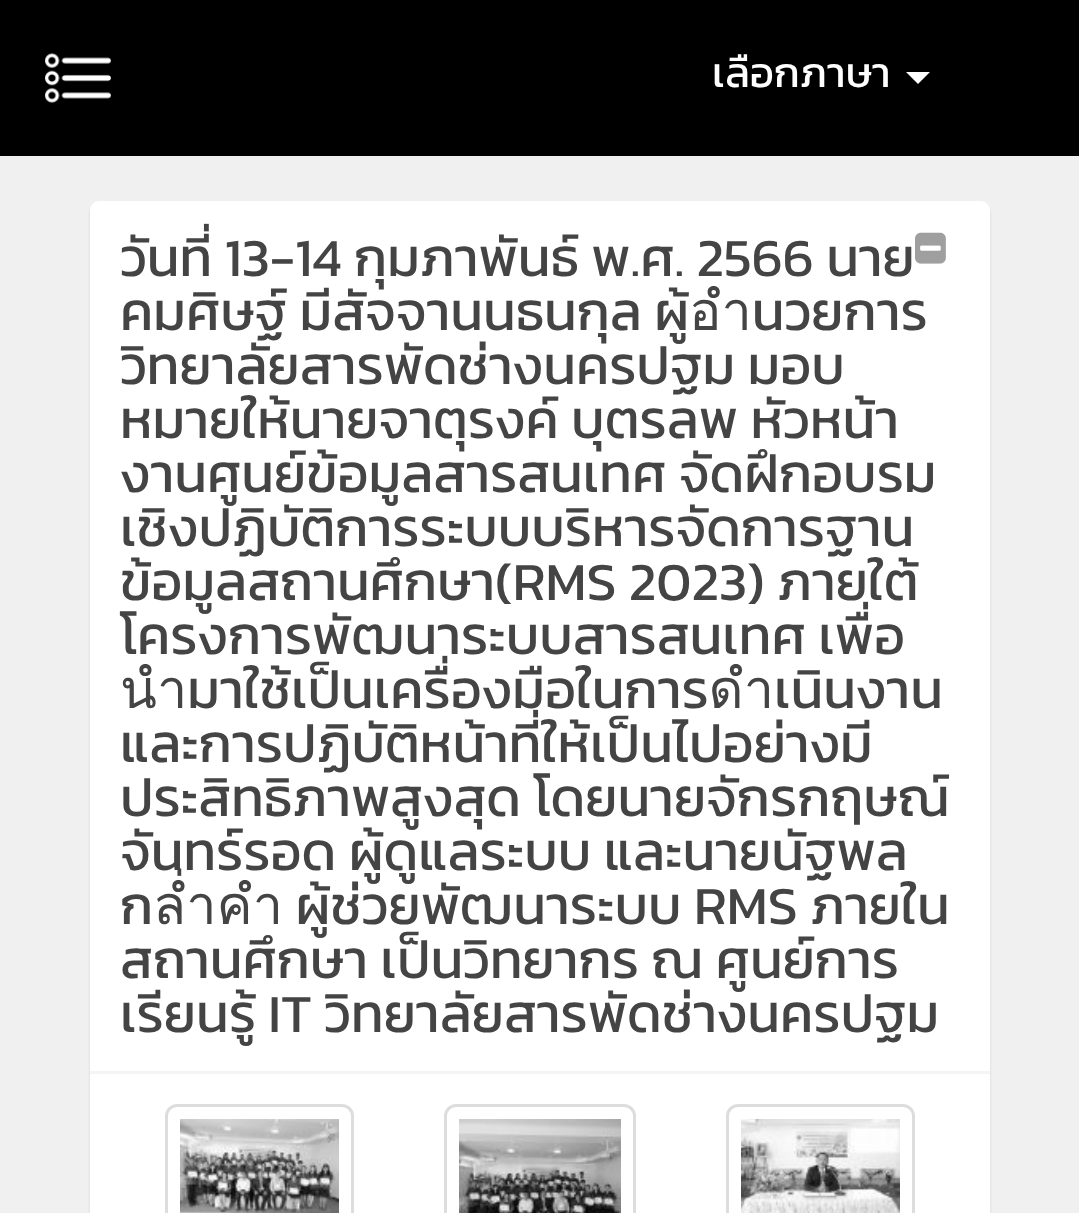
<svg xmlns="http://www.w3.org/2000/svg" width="1079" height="1213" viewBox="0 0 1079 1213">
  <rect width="100%" height="100%" fill="#f0f0f0"/>
  <path d="M0 0h1079v156H0z" fill="#000"/>
  <image x="45" y="53" width="66" height="50" href="img/1.png"/>
  <path d="M906 72H930L918 84Z" fill="#fff"/>
  <rect x="90" y="204" width="900" height="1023" rx="9" fill="#0000001a" filter="blur(1.5px)"/>
  <rect x="90" y="201" width="900" height="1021" rx="9" fill="#fff"/>
  <path d="M90 1071h900v3H90z" fill="#f4f4f4"/>
  <image x="915" y="232" width="31" height="32" href="img/2.png"/>
  <rect x="166.5" y="1105.5" width="186" height="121" rx="10.5" fill="none" stroke="#ddd" stroke-width="3"/>
  <image x="180" y="1119" width="159" height="94" href="img/3.png"/>
  <rect x="445.5" y="1105.5" width="189" height="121" rx="10.5" fill="none" stroke="#ddd" stroke-width="3"/>
  <image x="459" y="1119" width="162" height="94" href="img/4.png"/>
  <rect x="727.5" y="1105.5" width="186" height="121" rx="10.5" fill="none" stroke="#ddd" stroke-width="3"/>
  <image x="741" y="1119" width="159" height="94" href="img/5.png"/>
  <text x="712" y="87" font-family="Kanit" font-size="42" fill="#fff">เลือกภาษา</text>
  <g font-family="Kanit" font-size="54" fill="#444">
    <text x="120" y="276">วันที่ 13-14 กุมภาพันธ์ พ.ศ. 2566 นาย</text>
    <text x="120" y="330">คมศิษฐ์ มีสัจจานนธนกุล ผู้อำนวยการ</text>
    <text x="120" y="384">วิทยาลัยสารพัดช่างนครปฐม มอบ</text>
    <text x="120" y="438">หมายให้นายจาตุรงค์ บุตรลพ หัวหน้า</text>
    <text x="120" y="492">งานศูนย์ข้อมูลสารสนเทศ จัดฝึกอบรม</text>
    <text x="120" y="546">เชิงปฏิบัติการระบบบริหารจัดการฐาน</text>
    <text x="120" y="600">ข้อมูลสถานศึกษา(RMS 2023) ภายใต้</text>
    <text x="120" y="654">โครงการพัฒนาระบบสารสนเทศ เพื่อ</text>
    <text x="120" y="708">นำมาใช้เป็นเครื่องมือในการดำเนินงาน</text>
    <text x="120" y="762">และการปฏิบัติหน้าที่ให้เป็นไปอย่างมี</text>
    <text x="120" y="816">ประสิทธิภาพสูงสุด โดยนายจักรกฤษณ์</text>
    <text x="120" y="870">จันทร์รอด ผู้ดูแลระบบ และนายนัฐพล</text>
    <text x="120" y="924">กล่ำคำ ผู้ช่วยพัฒนาระบบ RMS ภายใน</text>
    <text x="120" y="978">สถานศึกษา เป็นวิทยากร ณ ศูนย์การ</text>
    <text x="120" y="1032">เรียนรู้ IT วิทยาลัยสารพัดช่างนครปฐม</text>
  </g>
</svg>
